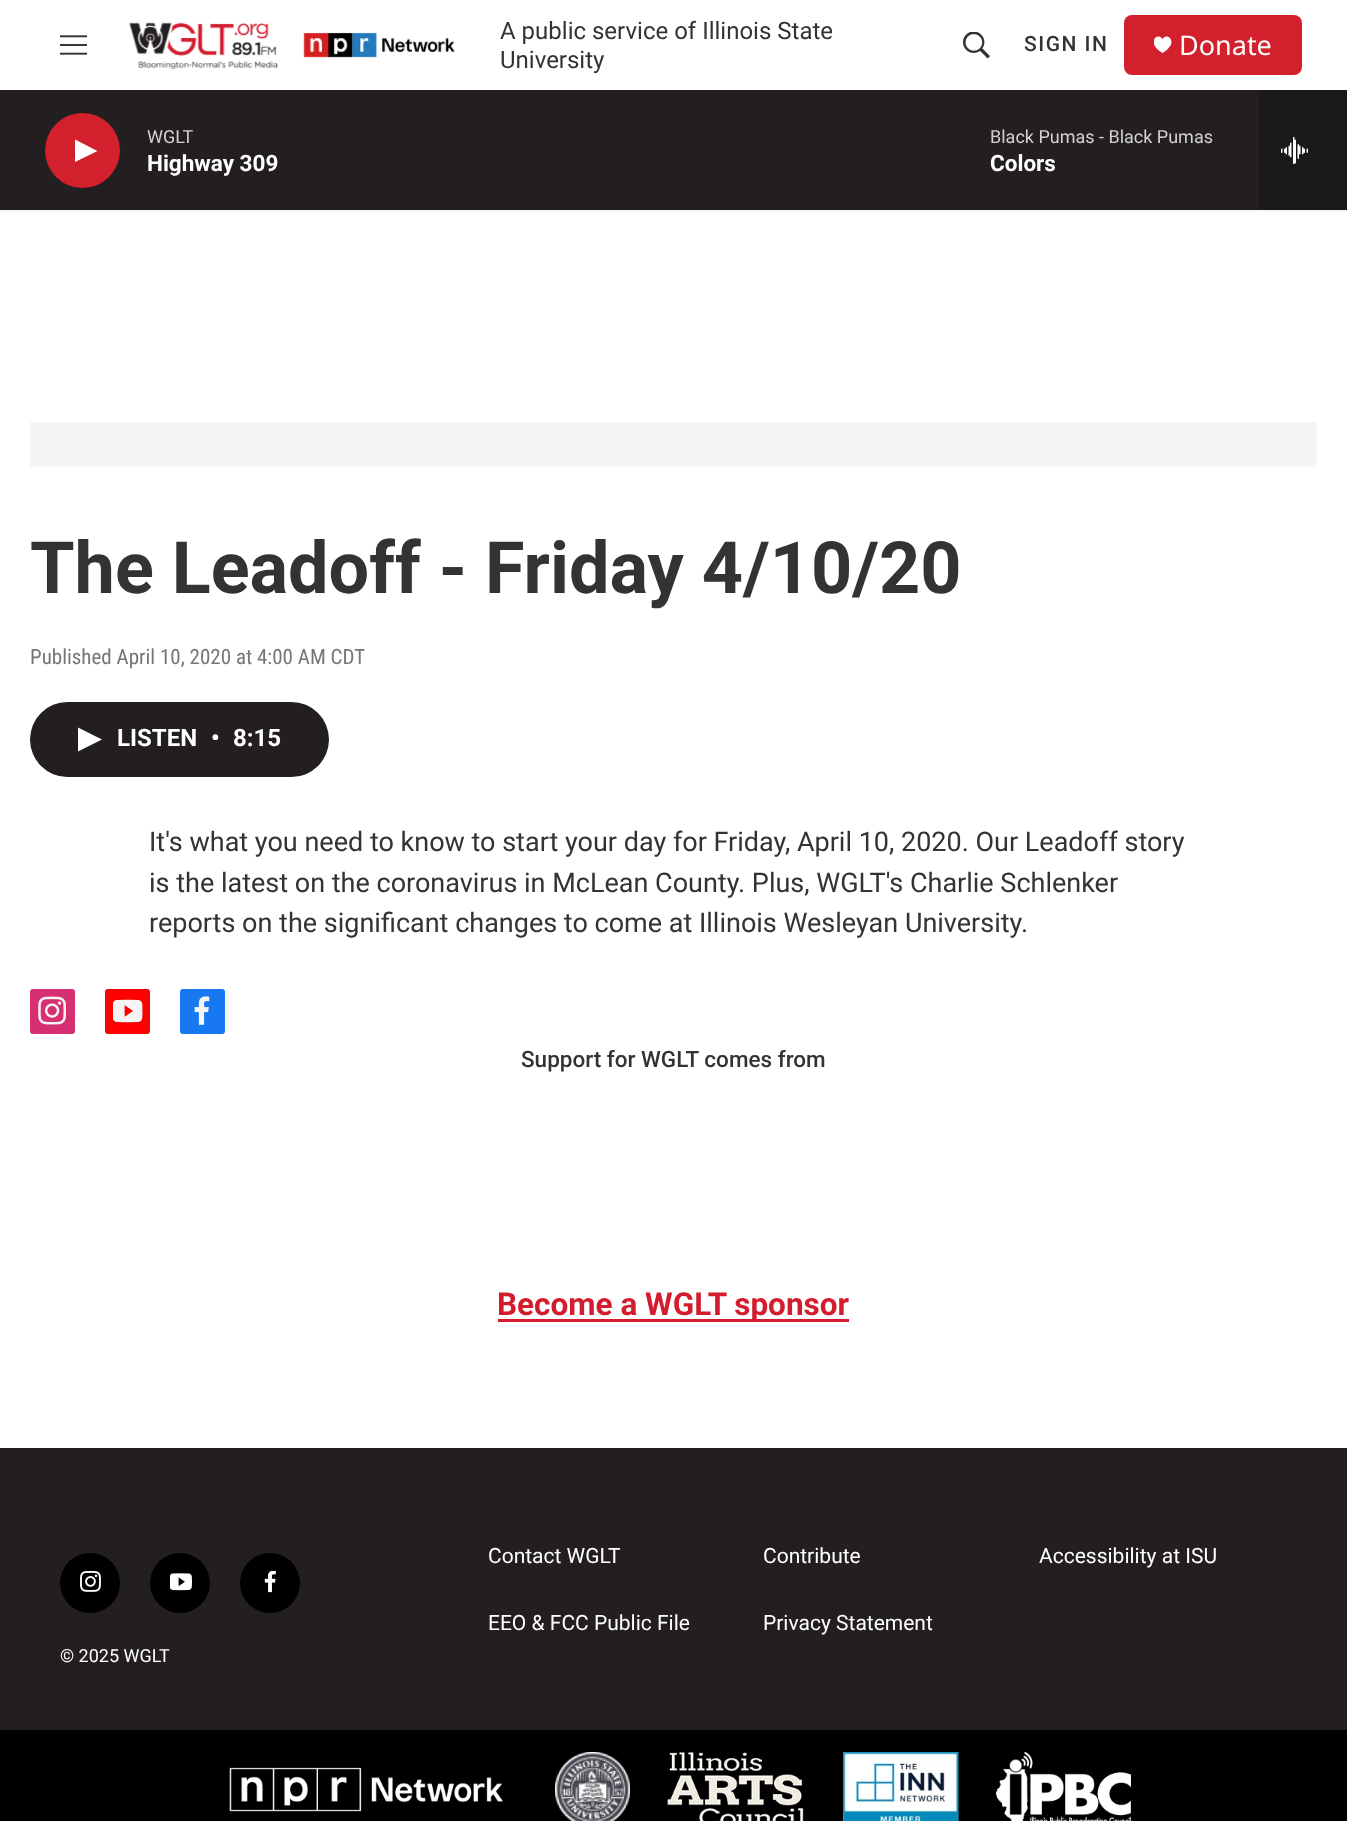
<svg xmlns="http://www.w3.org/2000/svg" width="1347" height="1821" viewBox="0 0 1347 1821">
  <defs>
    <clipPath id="clip1"><path d="M1154 36h18v18H1154z"/></clipPath>
  </defs>
  <rect width="100%" height="100%" fill="#fff"/>
  <path d="M0 210h1347v2H0z" fill="#f5f5f5"/>
  <image x="60" y="35" width="27" height="20" href="img/1.png"/>
  <image x="129" y="22" width="327" height="48" href="img/2.png"/>
  <image x="963" y="32" width="27" height="27" href="img/3.png"/>
  <rect x="1124" y="15" width="178" height="60" rx="8" fill="#d2202c"/>
  <g clip-path="url(#clip1)">
    <path d="M1162.5 39.5C1159.5 31.5 1144 41.5 1162.5 53C1181 41.5 1165.5 31.5 1162.5 39.5Z" fill="#fff"/>
  </g>
  <path d="M0 90h1259v120H0z" fill="#231f20"/>
  <circle cx="82.5" cy="150.5" r="37.5" fill="#d2202d"/>
  <path d="M75 139.5L97.5 151L75 162Z" fill="#fff"/>
  <path d="M1259 90h88v120H1259z" fill="#1c191a"/>
  <image x="1281" y="137" width="27" height="27" href="img/4.png"/>
  <path d="M30 422h1287v45H30z" fill="#f5f5f5"/>
  <rect x="30" y="702" width="299" height="75" rx="37.5" fill="#231f20"/>
  <path d="M78 727.5L102 739.5L78 751.5Z" fill="#fff"/>
  <rect x="30" y="989" width="45" height="45" rx="3" fill="#d63072"/>
  <image x="38" y="996" width="28" height="29" href="img/5.png"/>
  <rect x="105" y="989" width="45" height="45" rx="3" fill="#f00"/>
  <image x="113" y="999" width="30" height="24" href="img/6.png"/>
  <rect x="180" y="989" width="45" height="45" rx="3" fill="#1778f2"/>
  <image x="194" y="996" width="16" height="29" href="img/7.png"/>
  <path d="M498 1319h351v3H498z" fill="#d31d2e"/>
  <path d="M0 1448h1347v282H0z" fill="#231f20"/>
  <circle cx="90" cy="1583" r="30" fill="#000"/>
  <image x="80" y="1571" width="21" height="21" href="img/8.png"/>
  <circle cx="180" cy="1583" r="30" fill="#000"/>
  <image x="170" y="1573" width="22" height="18" href="img/9.png"/>
  <circle cx="270" cy="1583" r="30" fill="#000"/>
  <image x="264" y="1571" width="12" height="22" href="img/10.png"/>
  <path d="M0 1730h1347v91H0z" fill="#000"/>
  <image x="229" y="1767" width="274" height="45" href="img/11.png"/>
  <image x="555" y="1752" width="75" height="69" href="img/12.png"/>
  <image x="667" y="1752" width="137" height="69" href="img/13.png"/>
  <image x="843" y="1752" width="116" height="69" href="img/14.png"/>
  <image x="996" y="1752" width="135" height="69" href="img/15.png"/>
  <g font-family="Roboto" font-size="24" fill="#333">
    <text x="500" y="39">A public service of Illinois State</text>
    <text x="500" y="68">University</text>
  </g>
  <text x="1024" y="51" font-family="Roboto" font-size="21" font-weight="500" letter-spacing="1.5" fill="#333">SIGN IN</text>
  <text x="1179" y="55" font-family="Noto Sans" font-size="27" fill="#fff">Donate</text>
  <text x="147" y="143" font-family="Roboto" font-size="18" fill="#d3d2d2">WGLT</text>
  <text x="147" y="171" font-family="'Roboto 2'" font-size="22.5" font-weight="bold" fill="#fff">Highway 309</text>
  <text x="990" y="143" font-family="Roboto" font-size="18" fill="#d3d2d2">Black Pumas - Black Pumas</text>
  <text x="990" y="171" font-family="'Roboto 2'" font-size="22.5" font-weight="bold" fill="#fff">Colors</text>
  <text x="30" y="593" font-family="Roboto" font-size="72" font-weight="bold" fill="#333">The Leadoff - Friday 4/10/20</text>
  <text x="30" y="664" font-family="Roboto Condensed" font-size="21" fill="#767676">Published April 10, 2020 at 4:00 AM CDT</text>
  <g font-family="'Roboto 2'" font-size="24" font-weight="bold" fill="#fff">
    <text x="117" y="746">LISTEN</text>
    <text x="211" y="746">•</text>
    <text x="233" y="746">8:15</text>
  </g>
  <g font-family="Roboto" font-size="27" fill="#333">
    <text x="149" y="851">It's what you need to know to start your day for Friday, April 10, 2020. Our Leadoff story</text>
    <text x="149" y="892">is the latest on the coronavirus in McLean County. Plus, WGLT's Charlie Schlenker</text>
    <text x="149" y="932">reports on the significant changes to come at Illinois Wesleyan University.</text>
  </g>
  <text x="521" y="1067" font-family="Roboto" font-size="22.5" font-weight="500" fill="#333">Support for WGLT comes from</text>
  <text x="497" y="1315" font-family="'Roboto 2'" font-size="31.5" font-weight="bold" fill="#d31d2e">Become a WGLT sponsor</text>
  <g font-family="Roboto" font-size="21" fill="#fff">
    <text x="488" y="1563">Contact WGLT</text>
    <text x="763" y="1563">Contribute</text>
    <text x="1039" y="1563">Accessibility at ISU</text>
    <text x="488" y="1630">EEO &amp; FCC Public File</text>
    <text x="763" y="1630">Privacy Statement</text>
  </g>
  <text x="60" y="1662" font-family="Roboto" font-size="18" fill="#fff">© 2025 WGLT</text>
</svg>
